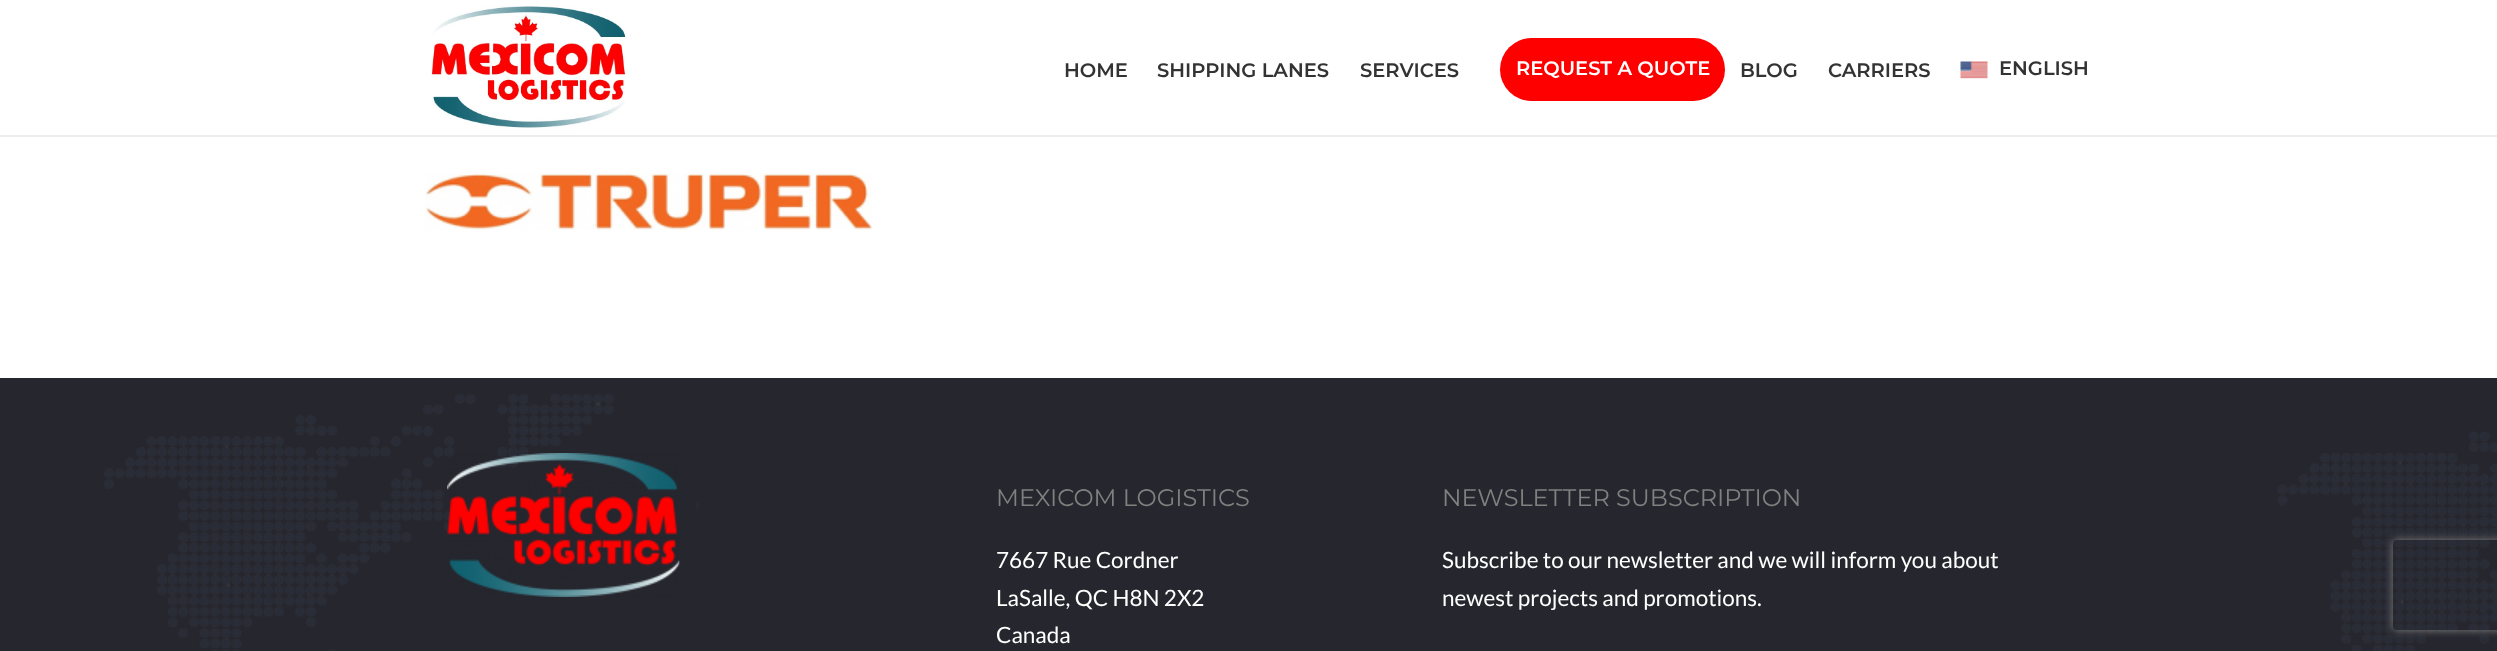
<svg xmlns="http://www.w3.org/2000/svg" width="2497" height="651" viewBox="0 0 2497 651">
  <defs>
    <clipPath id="clip1"><path d="M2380 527H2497V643H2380ZM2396 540H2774C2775.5 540 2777 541.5 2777 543V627C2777 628.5 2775.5 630 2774 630H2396C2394.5 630 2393 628.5 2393 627V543C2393 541.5 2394.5 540 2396 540Z" clip-rule="evenodd"/></clipPath>
  </defs>
  <rect width="100%" height="100%" fill="#fff"/>
  <path d="M0 135h2497v2H0z" fill="#ededed"/>
  <image x="430" y="5" width="197" height="124" href="img/1.png"/>
  <rect x="1500" y="38" width="225" height="63" rx="31.5" fill="#f00"/>
  <image x="1960" y="61" width="28" height="18" href="img/2.png"/>
  <image x="425" y="173" width="447" height="57" href="img/3.png"/>
  <path d="M0 378h2497v273H0z" fill="#26262e"/>
  <image x="104" y="394" width="2393" height="257" href="img/4.png"/>
  <image x="447" y="453" width="233" height="144" href="img/5.png"/>
  <g clip-path="url(#clip1)">
    <rect x="2393" y="540" width="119" height="90" rx="3" fill="#808080" filter="blur(4px)"/>
  </g>
  <g font-family="Montserrat" font-size="19.5" font-weight="600" fill="#333">
    <text x="1064" y="77">HOME</text>
    <text x="1157" y="77">SHIPPING LANES</text>
    <text x="1360" y="77">SERVICES</text>
  </g>
  <text x="1516" y="75" font-family="Montserrat" font-size="19.5" font-weight="600" fill="#fff">REQUEST A QUOTE</text>
  <g font-family="Montserrat" font-size="19.5" font-weight="600" fill="#333">
    <text x="1740" y="77">BLOG</text>
    <text x="1828" y="77">CARRIERS</text>
    <text x="1999" y="75">ENGLISH</text>
  </g>
  <text x="996" y="506" font-family="Montserrat" font-size="24" fill="#808080">MEXICOM LOGISTICS</text>
  <g font-family="Lato" font-size="22.5" fill="#fff">
    <text x="996" y="568">7667 Rue Cordner</text>
    <text x="996" y="606">LaSalle, QC H8N 2X2</text>
    <text x="996" y="643">Canada</text>
  </g>
  <text x="1442" y="506" font-family="Montserrat" font-size="24" fill="#808080">NEWSLETTER SUBSCRIPTION</text>
  <g font-family="Lato" font-size="22.5" fill="#fff">
    <text x="1442" y="568">Subscribe to our newsletter and we will inform you about</text>
    <text x="1442" y="606">newest projects and promotions.</text>
  </g>
</svg>
